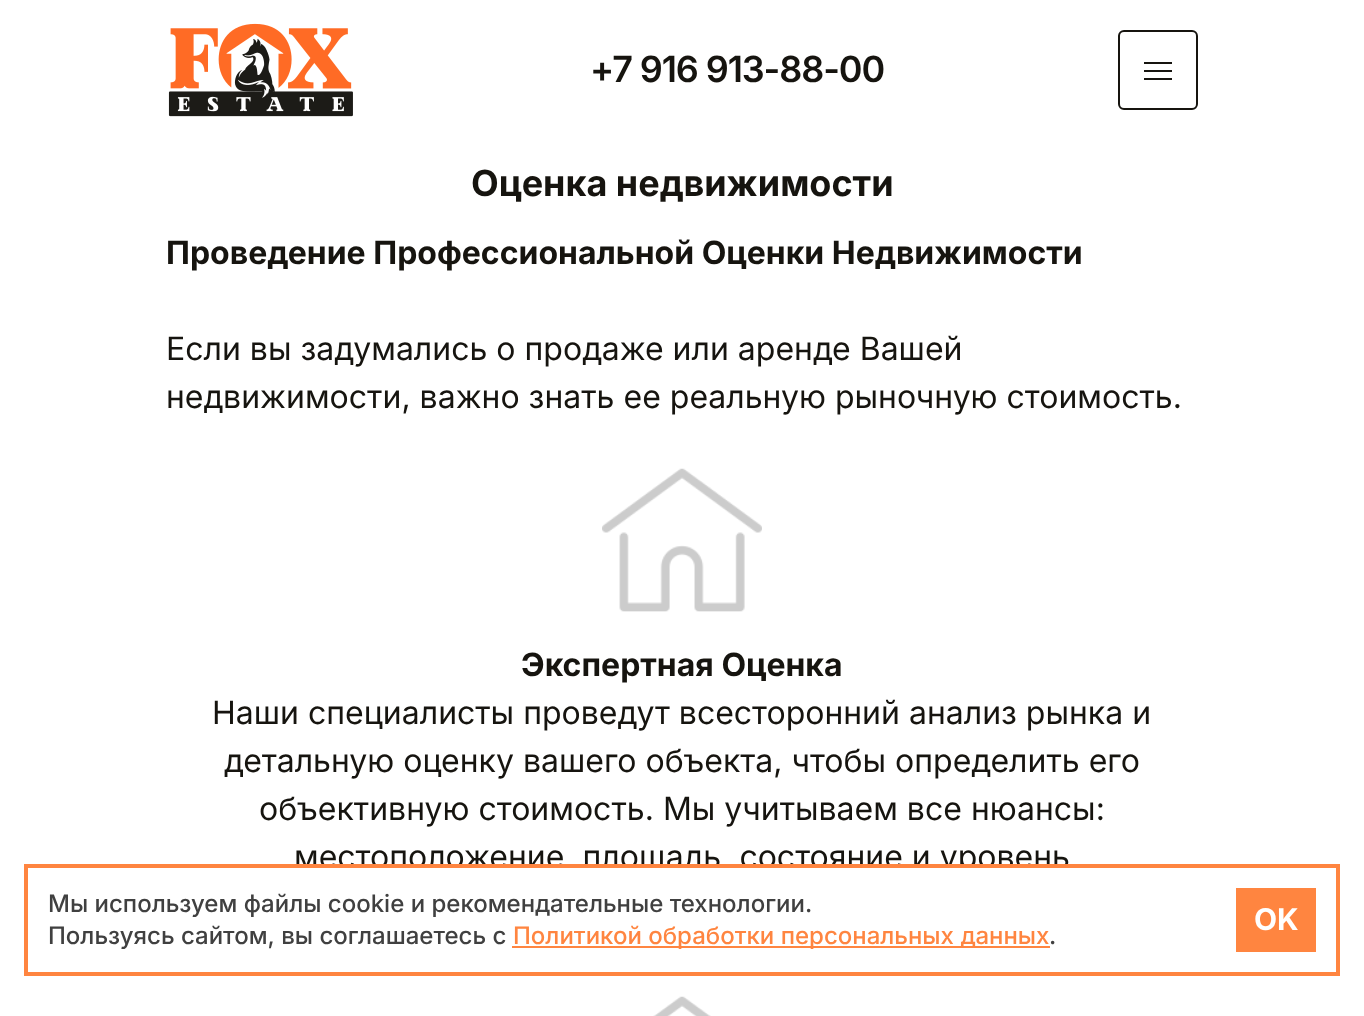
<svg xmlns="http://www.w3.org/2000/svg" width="1364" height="1016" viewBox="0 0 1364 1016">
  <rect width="100%" height="100%" fill="#fff"/>
  <image x="168" y="23" width="185" height="94" href="img/1.png"/>
  <path d="M1144 62h28v2H1144z" fill="#16140f"/>
  <path d="M1144 70h28v2H1144z" fill="#16140f"/>
  <path d="M1144 78h28v2H1144z" fill="#16140f"/>
  <rect x="1119" y="31" width="78" height="78" rx="5" fill="none" stroke="#16140f" stroke-width="2"/>
  <image x="602" y="468" width="160" height="144" href="img/2.png"/>
  <image x="653" y="996" width="58" height="20" href="img/3.png"/>
  <text x="590" y="82" font-family="Inter" font-size="36" font-weight="600" letter-spacing="-1.1" fill="#16140f">+7 916 913-88-00</text>
  <text x="471" y="196" font-family="Inter" font-size="36" font-weight="bold" fill="#16140f">Оценка недвижимости</text>
  <text x="166" y="264" font-family="Inter" font-size="32" font-weight="bold" fill="#16140f">Проведение Профессиональной Оценки Недвижимости</text>
  <g font-family="Inter" font-size="32" fill="#16140f">
    <text x="166" y="360">Если вы задумались о продаже или аренде Вашей</text>
    <text x="166" y="408">недвижимости, важно знать ее реальную рыночную стоимость.</text>
  </g>
  <text x="521" y="676" font-family="Inter" font-size="32" font-weight="bold" fill="#16140f">Экспертная Оценка</text>
  <g font-family="Inter" font-size="32" fill="#16140f">
    <text x="212" y="724">Наши специалисты проведут всесторонний анализ рынка и</text>
    <text x="224" y="772">детальную оценку вашего объекта, чтобы определить его</text>
    <text x="259" y="820">объективную стоимость. Мы учитываем все нюансы:</text>
    <text x="294" y="868">местоположение, площадь, состояние и уровень</text>
  </g>
  <path d="M326 868h701v7H326z" fill="#fff"/>
  <path d="M26 866h1312v108H26z" fill="none" stroke="#ff8540" stroke-width="4"/>
  <g font-family="Inter" font-size="24" font-weight="500" fill="#404040">
    <text x="48" y="912">Мы используем файлы cookie и рекомендательные технологии.</text>
    <text x="48" y="944">Пользуясь сайтом, вы соглашаетесь с</text>
  </g>
  <path d="M512 946h538v2H512z" fill="#ff8540"/>
  <text x="513" y="944" font-family="Inter" font-size="24" font-weight="500" fill="#ff8540">Политикой обработки персональных данных</text>
  <text x="1049" y="944" font-family="Inter" font-size="24" font-weight="500" fill="#404040">.</text>
  <path d="M1236 888h80v64H1236z" fill="#ff8540"/>
  <text x="1254" y="930" font-family="Inter" font-size="30" font-weight="bold" fill="#fff">OK</text>
</svg>
